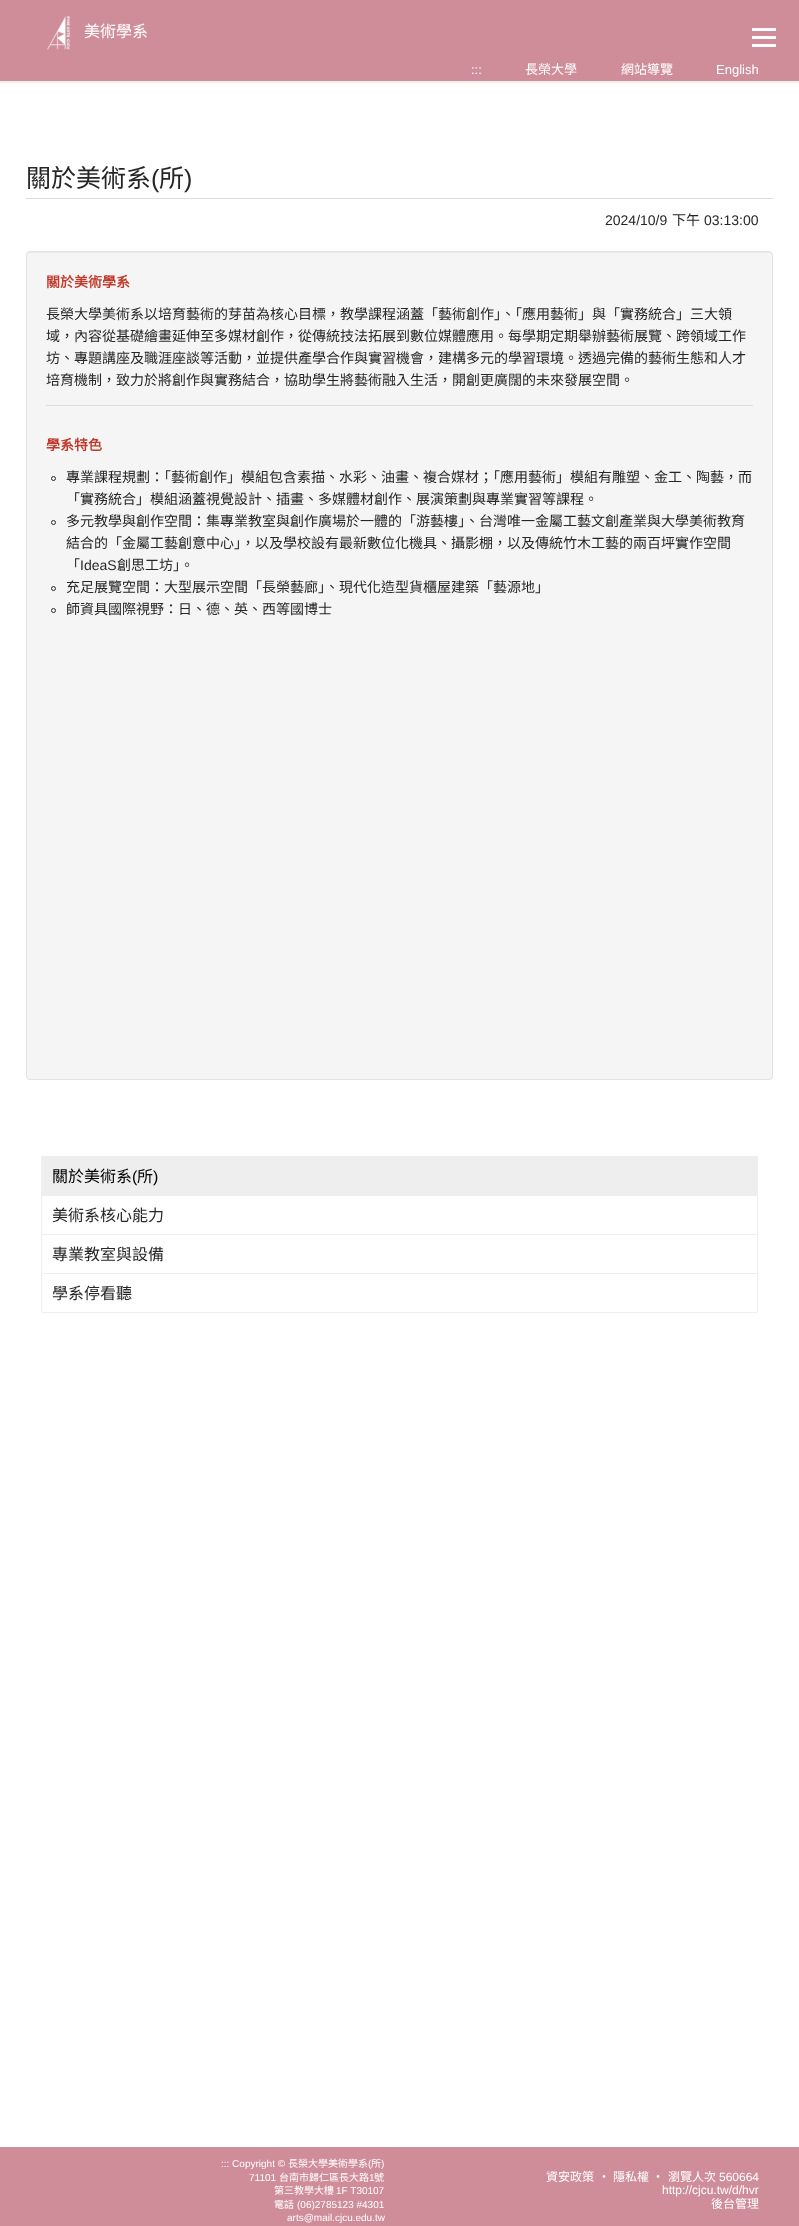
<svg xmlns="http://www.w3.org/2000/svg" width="799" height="2226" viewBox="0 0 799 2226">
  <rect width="100%" height="100%" fill="#fff"/>
  <path d="M0 0h799v81H0z" fill="#cf8d9a"/>
  <image x="47" y="16" width="23" height="34" href="img/1.png"/>
  <path d="M0 81h799v2H0z" fill="#eee"/>
  <path d="M752 36h24v3H752z" fill="#fff"/>
  <path d="M752 28h24v3H752z" fill="#fff"/>
  <path d="M752 44h24v3H752z" fill="#fff"/>
  <path d="M26 198h747v1H26z" fill="#ddd"/>
  <rect x="26" y="251" width="747" height="829" rx="4" fill="#f5f5f5"/>
  <path d="M30 253H769C771 253 772 254 772 256C772 254 771 252 769 252H30C28 252 27 254 27 256C27 254 28 253 30 253Z" fill="#e9e9e9"/>
  <rect x="26.5" y="251.5" width="746" height="828" rx="3.5" fill="none" stroke="#e3e3e3"/>
  <path d="M46 405h707v1H46z" fill="#ddd"/>
  <circle cx="53.5" cy="478.5" r="2" fill="none" stroke="#262626"/>
  <circle cx="53.5" cy="522.5" r="2" fill="none" stroke="#262626"/>
  <circle cx="53.5" cy="588.5" r="2" fill="none" stroke="#262626"/>
  <circle cx="53.5" cy="610.5" r="2" fill="none" stroke="#262626"/>
  <path d="M41 1156h717v39H41z" fill="#eee"/>
  <path d="M41.5 1195.5h716v39H41.5z" fill="none" stroke="#eee"/>
  <path d="M41.5 1234.5h716v39H41.5z" fill="none" stroke="#eee"/>
  <path d="M41.5 1273.5h716v39H41.5z" fill="none" stroke="#eee"/>
  <path d="M0 2147h799v79H0z" fill="#cf8d9a"/>
  <text x="84" y="37" font-family="Noto Sans CJK TC" font-size="16" fill="#fff">美術學系</text>
  <text x="471" y="74" font-family="Liberation Sans" font-size="13" fill="#fff">:::</text>
  <g font-family="Noto Sans CJK TC" font-size="13" fill="#fff">
    <text x="525" y="74">長榮大學</text>
    <text x="621" y="74">網站導覽</text>
  </g>
  <text x="716" y="74" font-family="Liberation Sans" font-size="13" fill="#fff">English</text>
  <text x="26" y="187" font-family="Noto Sans CJK TC" font-size="25" fill="#262626">關於美術系</text>
  <text x="151" y="187" font-family="Liberation Sans" font-size="25" fill="#262626">(</text>
  <text x="159" y="187" font-family="Noto Sans CJK TC" font-size="25" fill="#262626">所</text>
  <text x="184" y="187" font-family="Liberation Sans" font-size="25" fill="#262626">)</text>
  <text x="605" y="225" font-family="Liberation Sans" font-size="14" fill="#262626">2024/10/9</text>
  <text x="672" y="225" font-family="Noto Sans CJK TC" font-size="14" fill="#262626">下午</text>
  <text x="704" y="225" font-family="Liberation Sans" font-size="14" fill="#262626">03:13:00</text>
  <text x="46" y="287" font-family="Noto Sans CJK TC" font-size="14" font-weight="bold" fill="#c0392b">關於美術學系</text>
  <g font-family="Noto Sans CJK TC" font-size="14" fill="#262626">
    <text x="46" y="319">長榮大學美術系以培育藝術的芽苗為核心目標，教學課程涵蓋「藝術創作」、「應用藝術」與「實務統合」三大領</text>
    <text x="46" y="341">域，內容從基礎繪畫延伸至多媒材創作，從傳統技法拓展到數位媒體應用。每學期定期舉辦藝術展覽、跨領域工作</text>
    <text x="46" y="363">坊、專題講座及職涯座談等活動，並提供產學合作與實習機會，建構多元的學習環境。透過完備的藝術生態和人才</text>
    <text x="46" y="385">培育機制，致力於將創作與實務結合，協助學生將藝術融入生活，開創更廣闊的未來發展空間。</text>
  </g>
  <text x="46" y="450" font-family="Noto Sans CJK TC" font-size="14" font-weight="bold" fill="#c0392b">學系特色</text>
  <g font-family="Noto Sans CJK TC" font-size="14" fill="#262626">
    <text x="66" y="482">專業課程規劃：「藝術創作」模組包含素描、水彩、油畫、複合媒材；「應用藝術」模組有雕塑、金工、陶藝，而</text>
    <text x="66" y="504">「實務統合」模組涵蓋視覺設計、插畫、多媒體材創作、展演策劃與專業實習等課程。</text>
    <text x="66" y="526">多元教學與創作空間：集專業教室與創作廣場於一體的「游藝樓」、台灣唯一金屬工藝文創產業與大學美術教育</text>
    <text x="66" y="548">結合的「金屬工藝創意中心」，以及學校設有最新數位化機具、攝影棚，以及傳統竹木工藝的兩百坪實作空間</text>
    <text x="66" y="570">「</text>
  </g>
  <text x="80" y="570" font-family="Liberation Sans" font-size="14" fill="#262626">IdeaS</text>
  <g font-family="Noto Sans CJK TC" font-size="14" fill="#262626">
    <text x="117" y="570">創思工坊」。</text>
    <text x="66" y="592">充足展覽空間：大型展示空間「長榮藝廊」、現代化造型貨櫃屋建築「藝源地」</text>
    <text x="66" y="614">師資具國際視野：日、德、英、西等國博士</text>
  </g>
  <text x="52" y="1182" font-family="Noto Sans CJK TC" font-size="16" fill="#000">關於美術系</text>
  <text x="132" y="1182" font-family="Liberation Sans" font-size="16" fill="#000">(</text>
  <text x="137" y="1182" font-family="Noto Sans CJK TC" font-size="16" fill="#000">所</text>
  <text x="153" y="1182" font-family="Liberation Sans" font-size="16" fill="#000">)</text>
  <g font-family="Noto Sans CJK TC" font-size="16" fill="#262626">
    <text x="52" y="1221">美術系核心能力</text>
    <text x="52" y="1260">專業教室與設備</text>
    <text x="52" y="1299">學系停看聽</text>
  </g>
  <text x="221" y="2167" font-family="Liberation Sans" font-size="10" fill="#fff">::: Copyright ©</text>
  <text x="288" y="2167" font-family="Noto Sans CJK TC" font-size="10" fill="#fff">長榮大學美術學系</text>
  <text x="368" y="2167" font-family="Liberation Sans" font-size="10" fill="#fff">(</text>
  <text x="371" y="2167" font-family="Noto Sans CJK TC" font-size="10" fill="#fff">所</text>
  <g font-family="Liberation Sans" font-size="10" fill="#fff">
    <text x="381" y="2167">)</text>
    <text x="249" y="2181">71101</text>
  </g>
  <text x="279" y="2181" font-family="Noto Sans CJK TC" font-size="10" fill="#fff">台南市歸仁區長大路</text>
  <text x="369" y="2181" font-family="Liberation Sans" font-size="10" fill="#fff">1</text>
  <g font-family="Noto Sans CJK TC" font-size="10" fill="#fff">
    <text x="374" y="2181">號</text>
    <text x="274" y="2194">第三教學大樓</text>
  </g>
  <text x="336" y="2194" font-family="Liberation Sans" font-size="10" fill="#fff">1F T30107</text>
  <text x="274" y="2208" font-family="Noto Sans CJK TC" font-size="10" fill="#fff">電話</text>
  <g font-family="Liberation Sans" font-size="10" fill="#fff">
    <text x="297" y="2208">(06)2785123 #4301</text>
    <text x="287" y="2221">arts@mail.cjcu.edu.tw</text>
  </g>
  <g font-family="Noto Sans CJK TC" font-size="12" fill="#fff">
    <text x="546" y="2181">資安政策</text>
    <text x="598" y="2181">‧</text>
    <text x="613" y="2181">隱私權</text>
    <text x="652" y="2181">‧</text>
    <text x="668" y="2181">瀏覽人次</text>
  </g>
  <g font-family="Liberation Sans" font-size="12" fill="#fff">
    <text x="719" y="2181">560664</text>
    <text x="662" y="2194">http://cjcu.tw/d/hvr</text>
  </g>
  <text x="711" y="2208" font-family="Noto Sans CJK TC" font-size="12" fill="#fff">後台管理</text>
</svg>
